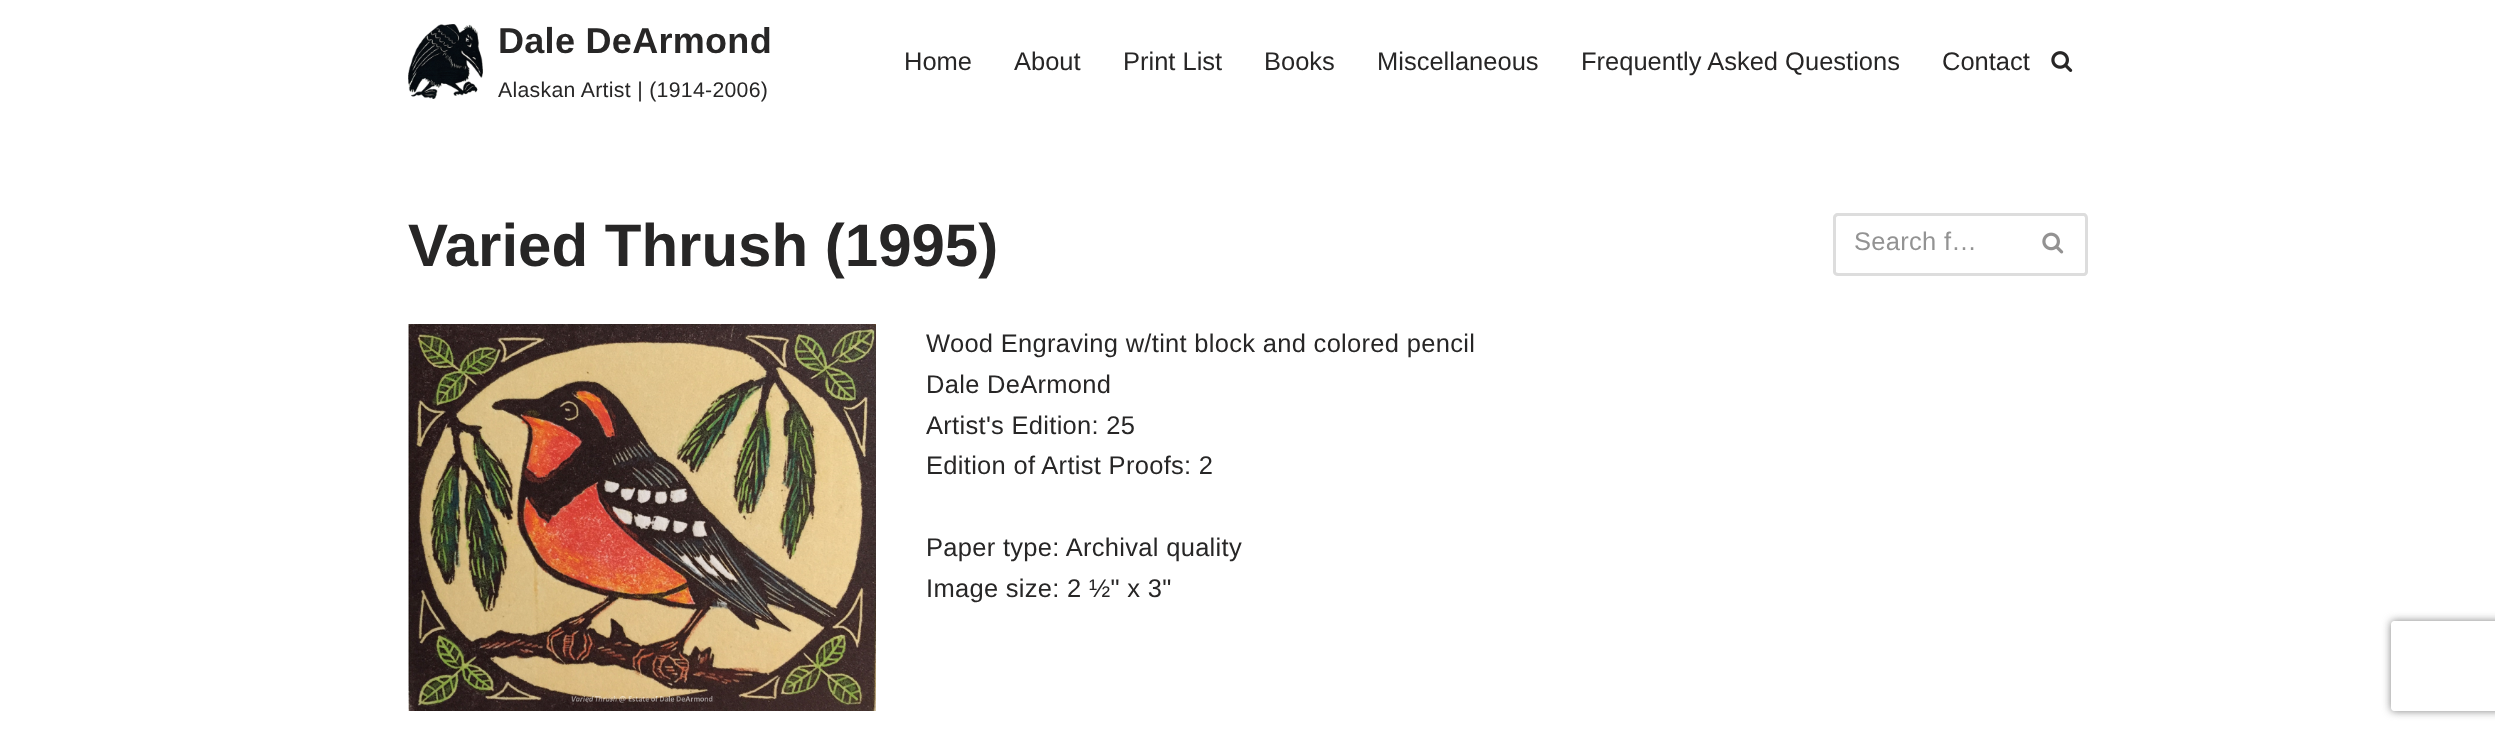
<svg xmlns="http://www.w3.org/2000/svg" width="2495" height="731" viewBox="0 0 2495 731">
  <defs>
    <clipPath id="clip1"><path d="M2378 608H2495V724H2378ZM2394 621H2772C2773.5 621 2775 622.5 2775 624V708C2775 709.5 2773.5 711 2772 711H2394C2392.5 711 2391 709.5 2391 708V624C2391 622.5 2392.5 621 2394 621Z" clip-rule="evenodd"/></clipPath>
  </defs>
  <rect width="100%" height="100%" fill="#fff"/>
  <image x="408" y="24" width="75" height="75" href="img/1.png"/>
  <image x="2051" y="51" width="22" height="21" href="img/2.png"/>
  <image x="408" y="324" width="468" height="387" href="img/3.png"/>
  <path d="M1838 213H2020V276H1838C1835 276 1833 274 1833 272V218C1833 215 1835 213 1838 213ZM1838 216H2020V273H1838C1837 273 1836 272 1836 272V218C1836 217 1837 216 1838 216Z" fill="#ddd" fill-rule="evenodd"/>
  <path d="M2020 213H2084C2086 213 2088 215 2088 218V272C2088 274 2086 276 2084 276H2020ZM2020 216H2084C2084 216 2085 217 2085 218V272C2085 272 2084 273 2084 273H2020Z" fill="#ddd" fill-rule="evenodd"/>
  <image x="2042" y="232" width="22" height="22" href="img/4.png"/>
  <g clip-path="url(#clip1)">
    <rect x="2391" y="621" width="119" height="90" rx="3" fill="#808080" filter="blur(4px)"/>
  </g>
  <text x="498" y="53" font-family="Liberation Sans" font-size="36" font-weight="bold" letter-spacing="0.3" fill="#272626">Dale DeArmond</text>
  <text x="498" y="97" font-family="Liberation Sans" font-size="21.25" letter-spacing="0.3" fill="#272626">Alaskan Artist | (1914-2006)</text>
  <g font-family="Liberation Sans" font-size="25.5" fill="#272626">
    <text x="904" y="70">Home</text>
    <text x="1014" y="70">About</text>
    <text x="1123" y="70">Print List</text>
    <text x="1264" y="70">Books</text>
    <text x="1377" y="70">Miscellaneous</text>
    <text x="1581" y="70">Frequently Asked Questions</text>
    <text x="1942" y="70">Contact</text>
  </g>
  <text x="408" y="266" font-family="Liberation Sans" font-size="60" font-weight="bold" fill="#272626">Varied Thrush (1995)</text>
  <g font-family="Liberation Sans" font-size="25.5" letter-spacing="0.3" fill="#272626">
    <text x="926" y="352">Wood Engraving w/tint block and colored pencil</text>
    <text x="926" y="393">Dale DeArmond</text>
    <text x="926" y="434">Artist's Edition: 25</text>
    <text x="926" y="474">Edition of Artist Proofs: 2</text>
    <text x="926" y="556">Paper type: Archival quality</text>
    <text x="926" y="597">Image size: 2 ½" x 3"</text>
  </g>
  <text x="1854" y="250" font-family="Liberation Sans" font-size="25.5" letter-spacing="0.3" fill="#939393">Search f…</text>
</svg>
